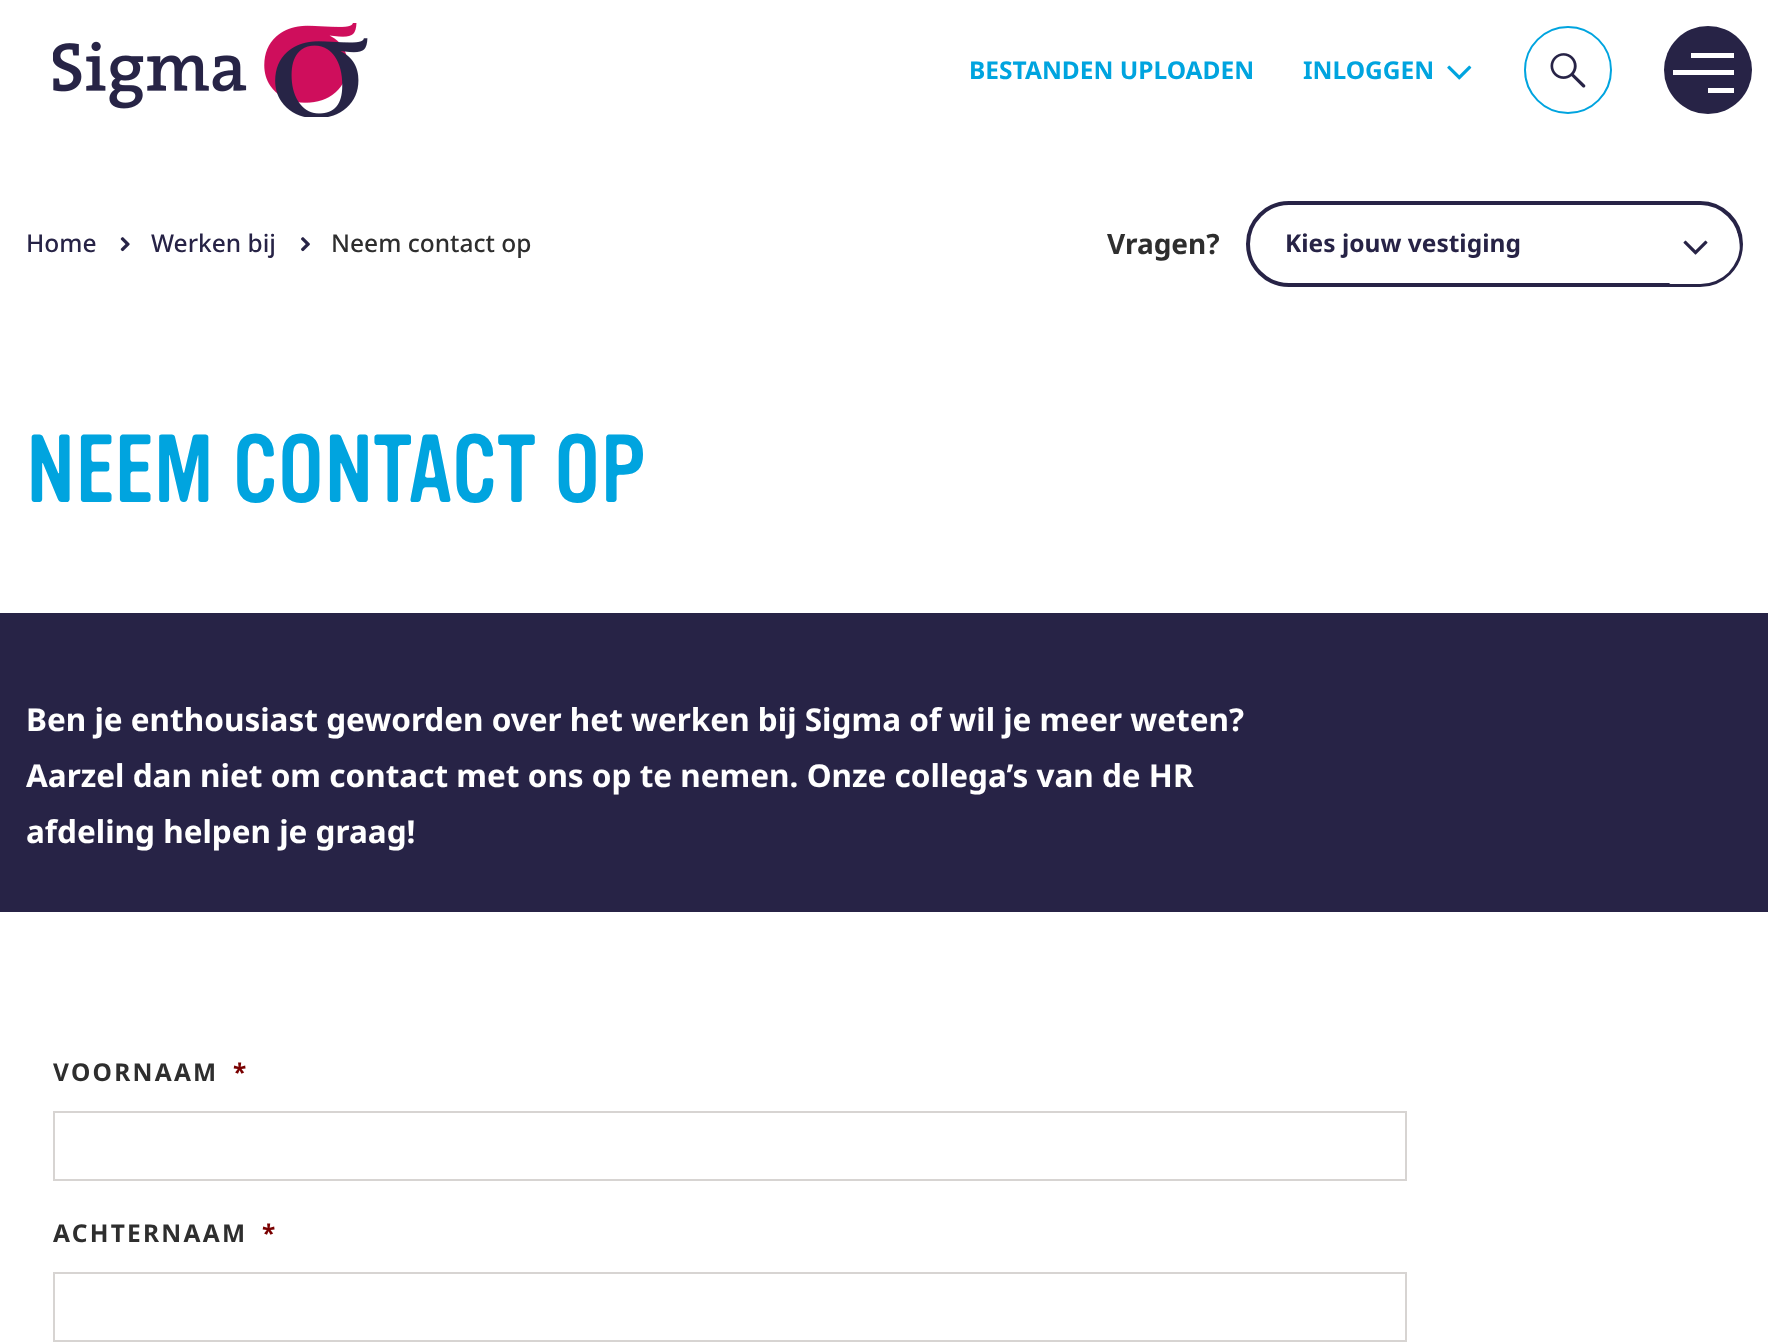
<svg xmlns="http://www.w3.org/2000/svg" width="1768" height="1343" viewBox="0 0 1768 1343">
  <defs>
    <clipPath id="clip1"><rect x="1250" y="205" width="490" height="79" rx="39.5"/></clipPath>
  </defs>
  <rect width="100%" height="100%" fill="#fff"/>
  <image x="53" y="23" width="315" height="94" href="img/1.png"/>
  <image x="1447" y="65" width="25" height="15" href="img/2.png"/>
  <circle cx="1568" cy="70" r="43" fill="none" stroke="#00a4df" stroke-width="2"/>
  <image x="1550" y="53" width="36" height="35" href="img/3.png"/>
  <circle cx="1708" cy="70" r="44" fill="#272346"/>
  <path d="M1673 70h61v5H1673z" fill="#fff"/>
  <path d="M1691 53h43v5H1691z" fill="#fff"/>
  <path d="M1708 88h26v5H1708z" fill="#fff"/>
  <path d="M0 613h1768v299H0z" fill="#272346"/>
  <image x="120" y="237" width="10" height="15" href="img/4.png"/>
  <image x="301" y="237" width="9" height="15" href="img/5.png"/>
  <rect x="1248" y="203" width="493" height="82" rx="41" fill="none" stroke="#272346" stroke-width="4"/>
  <g clip-path="url(#clip1)">
    <rect x="1652" y="205" width="88" height="87" rx="43.5" fill="#fff"/>
  </g>
  <image x="1683" y="240" width="25" height="15" href="img/6.png"/>
  <path d="M54 1112h1352v68H54z" fill="none" stroke="#d7d4d2" stroke-width="2"/>
  <path d="M54 1273h1352v68H54z" fill="none" stroke="#d7d4d2" stroke-width="2"/>
  <g font-family="Noto Sans" font-size="24.5" font-weight="bold" fill="#00a4df">
    <text x="969" y="79">BESTANDEN UPLOADEN</text>
    <text x="1303" y="79">INLOGGEN</text>
  </g>
  <g font-family="Noto Sans" font-size="24.5" font-weight="500" fill="#272346">
    <text x="26" y="252">Home</text>
    <text x="151" y="252">Werken bij</text>
  </g>
  <text x="331" y="252" font-family="Noto Sans" font-size="24.5" font-weight="500" fill="#2e2e2e">Neem contact op</text>
  <text x="1107" y="254" font-family="Noto Sans" font-size="28" font-weight="bold" fill="#2e2e2e">Vragen?</text>
  <text x="1285" y="252" font-family="Noto Sans" font-size="24.5" font-weight="bold" fill="#272346">Kies jouw vestiging</text>
  <text x="26" y="502" font-family="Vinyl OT" font-size="94.5" fill="#00a4df">NEEM CONTACT OP</text>
  <g font-family="Noto Sans" font-size="31.5" font-weight="bold" fill="#fff">
    <text x="26" y="731">Ben je enthousiast geworden over het werken bij Sigma of wil je meer weten?</text>
    <text x="26" y="787">Aarzel dan niet om contact met ons op te nemen. Onze collega’s van de HR</text>
    <text x="26" y="843">afdeling helpen je graag!</text>
  </g>
  <text x="53" y="1081" font-family="Noto Sans" font-size="24.5" font-weight="bold" letter-spacing="2.25" fill="#2e2e2e">VOORNAAM</text>
  <text x="233" y="1081" font-family="Noto Sans" font-size="24.5" font-weight="bold" letter-spacing="2.25" fill="#790000">*</text>
  <text x="53" y="1242" font-family="Noto Sans" font-size="24.5" font-weight="bold" letter-spacing="2.25" fill="#2e2e2e">ACHTERNAAM</text>
  <text x="262" y="1242" font-family="Noto Sans" font-size="24.5" font-weight="bold" letter-spacing="2.25" fill="#790000">*</text>
</svg>
